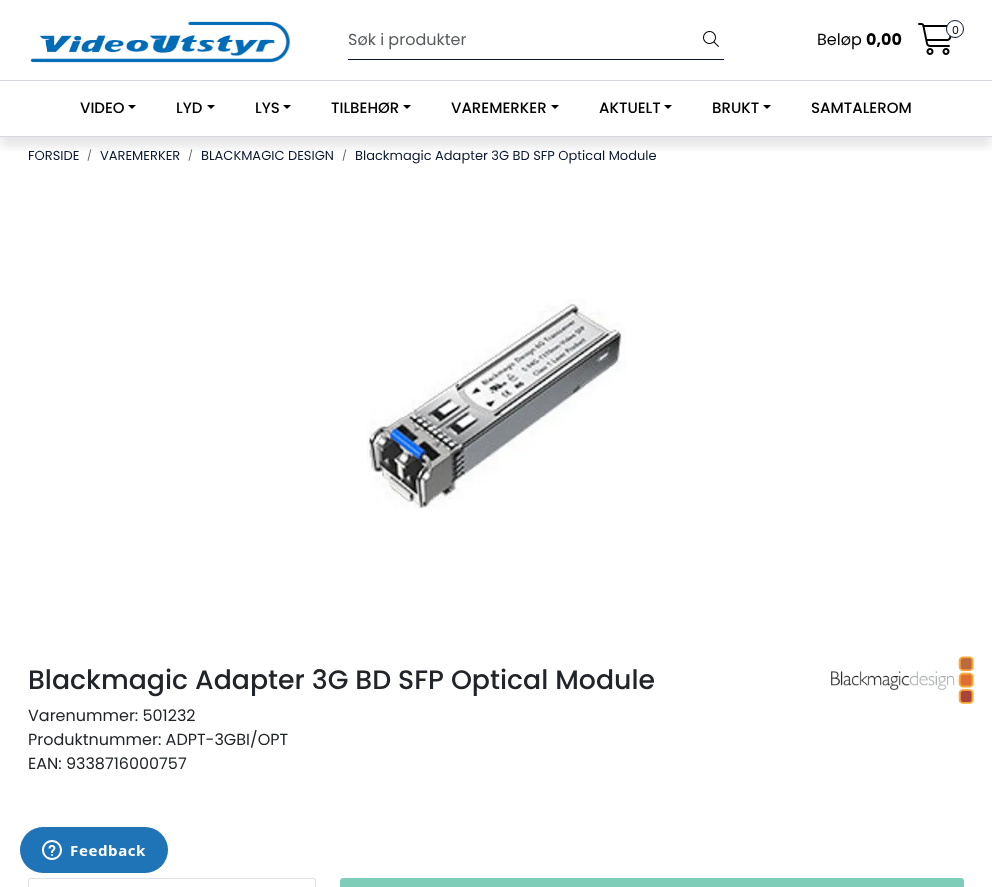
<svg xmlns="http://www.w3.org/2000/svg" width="992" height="887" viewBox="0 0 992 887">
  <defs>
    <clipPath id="clip1"><path d="M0 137h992v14H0z"/></clipPath>
  </defs>
  <rect width="100%" height="100%" fill="#fff"/>
  <g clip-path="url(#clip1)">
    <path d="M0 10h992v137H0z" fill="#1111111a" filter="blur(5px)"/>
  </g>
  <image x="30" y="21" width="260" height="42" href="img/1.png"/>
  <path d="M348 59h376v1H348z" fill="#0a192f"/>
  <image x="703" y="31" width="16" height="16" href="img/2.png"/>
  <image x="918" y="23" width="34" height="32" href="img/3.png"/>
  <circle cx="955" cy="29" r="8.5" fill="#fff" stroke="#0a192f"/>
  <path d="M0 80h992v1H0z" fill="#d6d8dd"/>
  <path d="M0 136h992v1H0z" fill="#d6d8dd"/>
  <path d="M128 105H136L132 109Z" fill="#000"/>
  <path d="M207 105H215L211 109Z" fill="#000"/>
  <path d="M283 105H291L287 109Z" fill="#000"/>
  <path d="M403 105H411L407 109Z" fill="#000"/>
  <path d="M551 105H559L555 109Z" fill="#000"/>
  <path d="M664 105H672L668 109Z" fill="#000"/>
  <path d="M763 105H771L767 109Z" fill="#000"/>
  <image x="367" y="299" width="260" height="210" href="img/4.png"/>
  <image x="831" y="656" width="143" height="48" href="img/5.png"/>
  <path d="M71 878h199v1H71z" fill="#dee2e6"/>
  <path d="M31 878H72V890H31C29.5 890 28 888.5 28 887V881C28 879.5 29.5 878 31 878Z" fill="#fff"/>
  <path d="M31 878H72V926H31C29 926 28 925 28 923V881C28 879 29 878 31 878ZM31 879H72V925H38C38 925 29 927 29 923V880Z" fill="#dee2e6" fill-rule="evenodd"/>
  <path d="M269 878H313C314.5 878 316 879.5 316 881V887C316 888.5 314.5 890 313 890H269Z" fill="#fff"/>
  <path d="M269 878H313C315 878 316 879 316 881V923C316 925 315 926 313 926H269ZM269 879H313C314 879 315 880 315 881V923C315 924 314 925 313 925H269Z" fill="#dee2e6" fill-rule="evenodd"/>
  <rect x="340.5" y="878.5" width="623" height="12" rx="2.5" fill="#7dcdb8" stroke="#7dcdb8"/>
  <image x="20" y="827" width="148" height="46" href="img/6.png"/>
  <text x="348" y="45" font-family="Poppins" font-size="16" fill="#595c5f">Søk i produkter</text>
  <text x="952" y="34" font-family="Poppins" font-size="11" fill="#000">0</text>
  <text x="817" y="45" font-family="Poppins" font-size="16" fill="#000">Beløp</text>
  <text x="866" y="45" font-family="Poppins" font-size="16" font-weight="bold" fill="#000">0,00</text>
  <g font-family="Poppins" font-size="15" font-weight="500" fill="#000">
    <text x="80" y="113">VIDEO</text>
    <text x="176" y="113">LYD</text>
    <text x="255" y="113">LYS</text>
    <text x="331" y="113">TILBEHØR</text>
    <text x="451" y="113">VAREMERKER</text>
    <text x="599" y="113">AKTUELT</text>
    <text x="712" y="113">BRUKT</text>
    <text x="811" y="113">SAMTALEROM</text>
  </g>
  <text x="28" y="160" font-family="Poppins" font-size="13" fill="#0a192f">FORSIDE</text>
  <text x="87" y="159" font-family="Poppins" font-size="10" fill="#595c5f">/</text>
  <text x="100" y="160" font-family="Poppins" font-size="13" fill="#0a192f">VAREMERKER</text>
  <text x="188" y="159" font-family="Poppins" font-size="10" fill="#595c5f">/</text>
  <text x="201" y="160" font-family="Poppins" font-size="13" fill="#0a192f">BLACKMAGIC DESIGN</text>
  <text x="342" y="159" font-family="Poppins" font-size="10" fill="#595c5f">/</text>
  <text x="355" y="160" font-family="Poppins" font-size="13" fill="#0a192f">Blackmagic Adapter 3G BD SFP Optical Module</text>
  <text x="28" y="689" font-family="Poppins" font-size="26.75" font-weight="500" fill="#212529">Blackmagic Adapter 3G BD SFP Optical Module</text>
  <g font-family="Poppins" font-size="16" fill="#212529">
    <text x="28" y="721">Varenummer: 501232</text>
    <text x="28" y="745">Produktnummer: ADPT-3GBI/OPT</text>
    <text x="28" y="769">EAN: 9338716000757</text>
  </g>
</svg>
